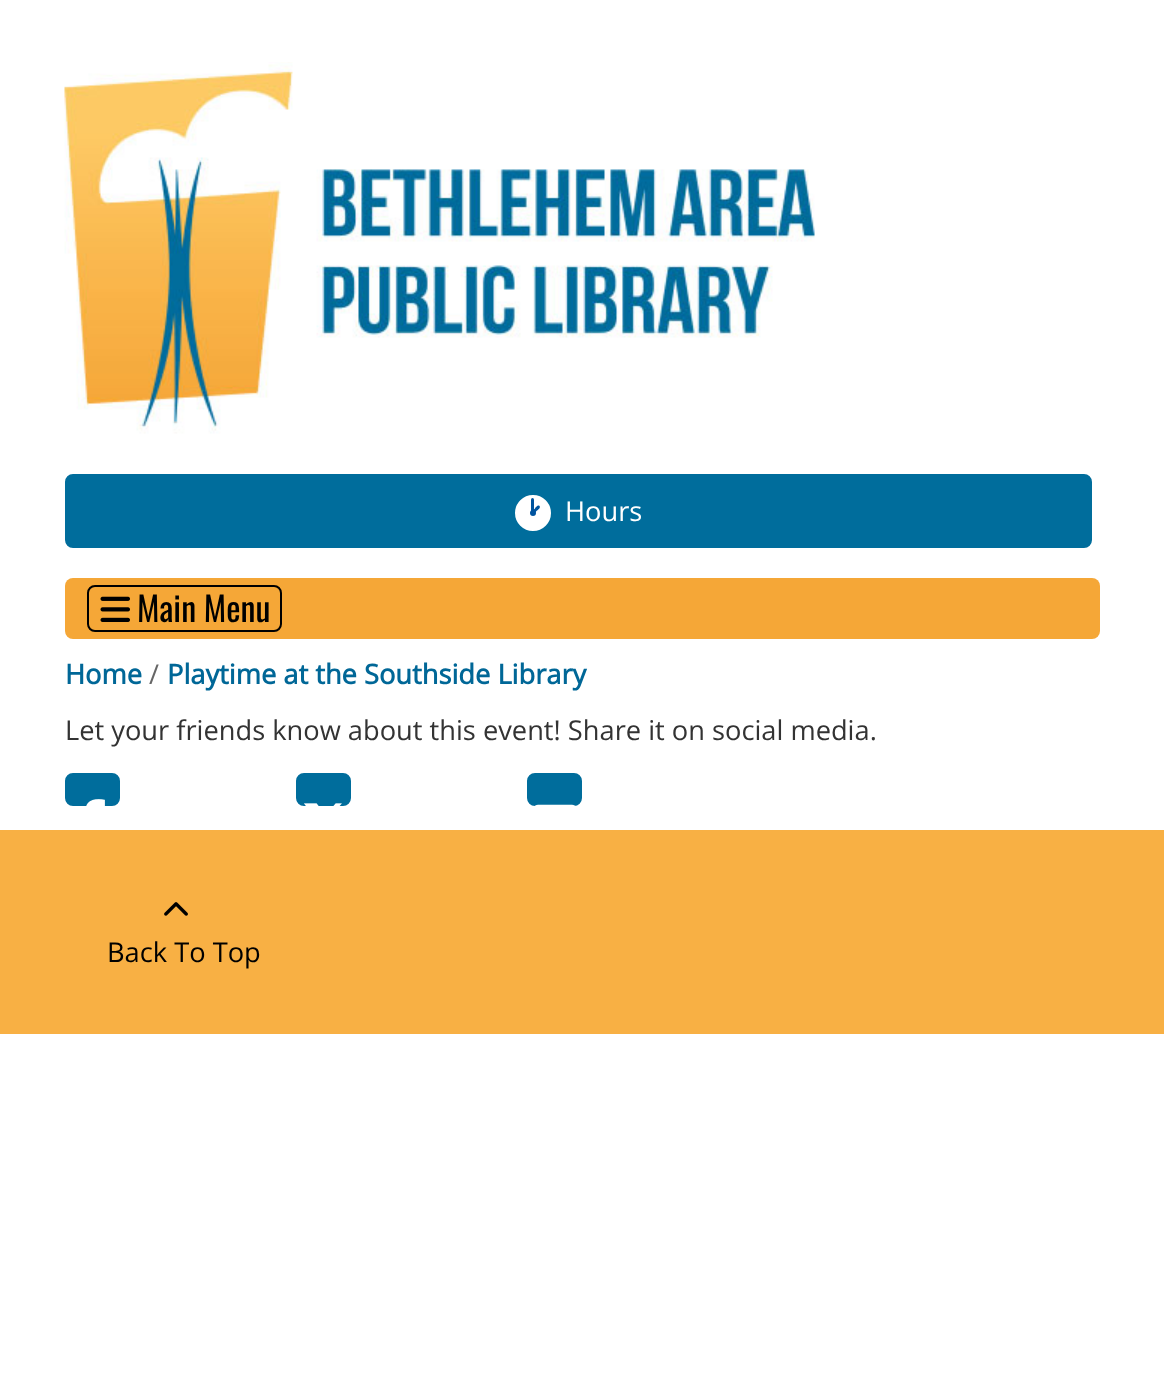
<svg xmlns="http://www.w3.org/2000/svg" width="1164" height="1398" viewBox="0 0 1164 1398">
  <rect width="100%" height="100%" fill="#fff"/>
  <image x="64" y="62" width="751" height="372" href="img/1.png"/>
  <rect x="66" y="475" width="1025" height="72" rx="7" fill="#006d9c" stroke="#006d9c" stroke-width="2"/>
  <circle cx="533" cy="513" r="10.5" fill="#00549f" stroke="#fff" stroke-width="15"/>
  <rect x="531" y="498" width="3" height="15" rx="1.5" fill="#00549f"/>
  <path d="M539.5 506C541 507.5 538 510 537 510.5C536 511.5 534 515 532 513.5C530.5 511.5 534 509.5 535 508.5C535.5 507.5 538 504.5 539.5 506Z" fill="#00549f"/>
  <rect x="65" y="578" width="1035" height="61" rx="8" fill="#f5a737"/>
  <rect x="88" y="586" width="193" height="45" rx="7" fill="none" stroke="#000" stroke-width="2"/>
  <image x="100" y="596" width="30" height="26" href="img/2.png"/>
  <rect x="66" y="774" width="53" height="31" rx="7" fill="#006d9c" stroke="#006d9c" stroke-width="2"/>
  <image x="86" y="799" width="19" height="7" href="img/3.png"/>
  <rect x="297" y="774" width="53" height="31" rx="7" fill="#006d9c" stroke="#006d9c" stroke-width="2"/>
  <image x="304" y="803" width="38" height="3" href="img/4.png"/>
  <rect x="528" y="774" width="53" height="31" rx="7" fill="#006d9c" stroke="#006d9c" stroke-width="2"/>
  <image x="534" y="804" width="42" height="2" href="img/5.png"/>
  <path d="M0 830h1164v204H0z" fill="#f8b044"/>
  <image x="164" y="902" width="24" height="14" href="img/6.png"/>
  <text x="565" y="521" font-family="Open Sans" font-size="27.25" fill="#fff">Hours</text>
  <text x="137" y="622" font-family="Oswald" font-size="34" fill="#000">Main Menu</text>
  <text x="65" y="684" font-family="Open Sans" font-size="27.25" font-weight="bold" fill="#006797">Home</text>
  <text x="149" y="684" font-family="Open Sans" font-size="27.25" fill="#666">/</text>
  <text x="167" y="684" font-family="Open Sans" font-size="27.25" font-weight="bold" fill="#006797">Playtime at the Southside Library</text>
  <text x="65" y="740" font-family="Open Sans" font-size="27.25" fill="#333">Let your friends know about this event! Share it on social media.</text>
  <text x="107" y="962" font-family="Open Sans" font-size="27.25" fill="#000">Back To Top</text>
</svg>
